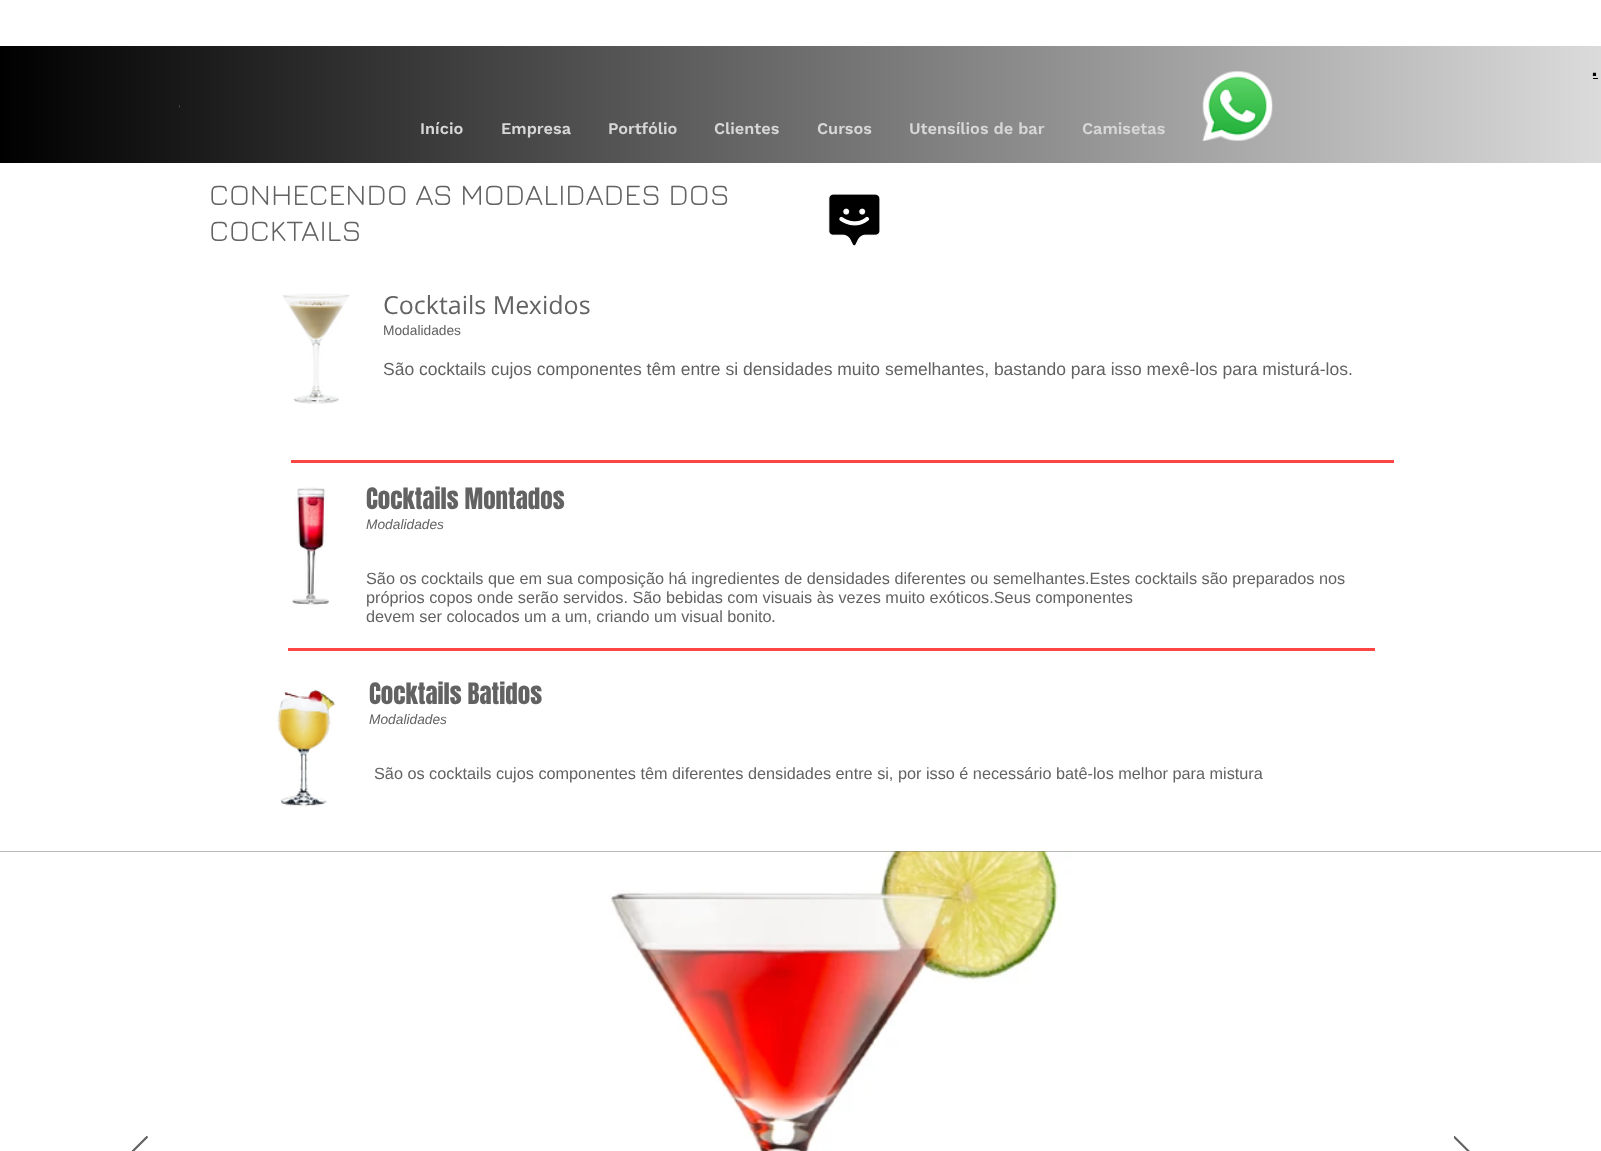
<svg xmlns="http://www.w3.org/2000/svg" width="1601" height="1151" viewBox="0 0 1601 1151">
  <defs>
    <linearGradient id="g1" gradientUnits="userSpaceOnUse" x1="0" y1="104" x2="1601" y2="104"><stop offset="0" stop-color="#000"/><stop offset="1" stop-color="#dbdbdb"/></linearGradient>
  </defs>
  <rect width="100%" height="100%" fill="#fff"/>
  <path d="M0 46h1601v117H0z" fill="url(#g1)"/>
  <image x="1202" y="71" width="71" height="70" href="img/1.png"/>
  <path d="M1593 78h5v1H1593z" fill="#000"/>
  <image x="179" y="105" width="1" height="3" href="img/2.png"/>
  <image x="828" y="194" width="52" height="52" href="img/3.png"/>
  <image x="282" y="293" width="68" height="111" href="img/4.png"/>
  <path d="M291 460h1103v3H291z" fill="#fc4646"/>
  <image x="292" y="487" width="37" height="118" href="img/5.png"/>
  <path d="M288 648h1087v3H288z" fill="#fc4646"/>
  <image x="277" y="689" width="59" height="118" href="img/6.png"/>
  <path d="M0 851h1601v1H0z" fill="#605e5e"/>
  <image x="0" y="851" width="1601" height="300" href="img/7.png"/>
  <image x="131" y="1136" width="17" height="15" href="img/8.png"/>
  <image x="1454" y="1136" width="16" height="15" href="img/9.png"/>
  <text x="1592" y="76" font-family="Jockey One" font-size="22" fill="#000">.</text>
  <g font-family="Work Sans" font-size="16.25" font-weight="600" fill="#d7d7d7">
    <text x="420" y="134">Início</text>
    <text x="501" y="134">Empresa</text>
    <text x="608" y="134">Portfólio</text>
    <text x="714" y="134">Clientes</text>
    <text x="817" y="134">Cursos</text>
    <text x="909" y="134">Utensílios de bar</text>
    <text x="1082" y="134">Camisetas</text>
  </g>
  <g font-family="Jura" font-size="30" fill="#626262">
    <text x="209" y="205">CONHECENDO AS MODALIDADES DOS</text>
    <text x="209" y="241">COCKTAILS</text>
  </g>
  <text x="383" y="314" font-family="Open Sans" font-size="25" fill="#626262">Cocktails Mexidos</text>
  <text x="383" y="335" font-family="Liberation Sans" font-size="13.75" fill="#626262">Modalidades</text>
  <text x="383" y="375" font-family="Liberation Sans" font-size="17.5" fill="#626262">São cocktails cujos componentes têm entre si densidades muito semelhantes, bastando para isso mexê-los para misturá-los.</text>
  <text x="366" y="509" font-family="Anton" font-size="25" fill="#626262">Cocktails Montados</text>
  <text x="366" y="529" font-family="Liberation Sans" font-size="13.75" font-style="italic" fill="#626262">Modalidades</text>
  <g font-family="Liberation Sans" font-size="16.25" fill="#626262">
    <text x="366" y="584">São os cocktails que em sua composição há ingredientes de densidades diferentes ou semelhantes.Estes cocktails são preparados nos</text>
    <text x="366" y="603">próprios copos onde serão servidos. São bebidas com visuais às vezes muito exóticos.Seus componentes</text>
    <text x="366" y="622">devem ser colocados um a um, criando um visual bonito</text>
  </g>
  <text x="771" y="622" font-family="Liberation Sans" font-size="17.5" fill="#626262">.</text>
  <text x="369" y="704" font-family="Anton" font-size="25" fill="#626262">Cocktails Batidos</text>
  <text x="369" y="724" font-family="Liberation Sans" font-size="13.75" font-style="italic" fill="#626262">Modalidades</text>
  <text x="374" y="779" font-family="Liberation Sans" font-size="16.25" fill="#626262">São os cocktails cujos componentes têm diferentes densidades entre si, por isso é necessário batê-los melhor para mistura</text>
</svg>
